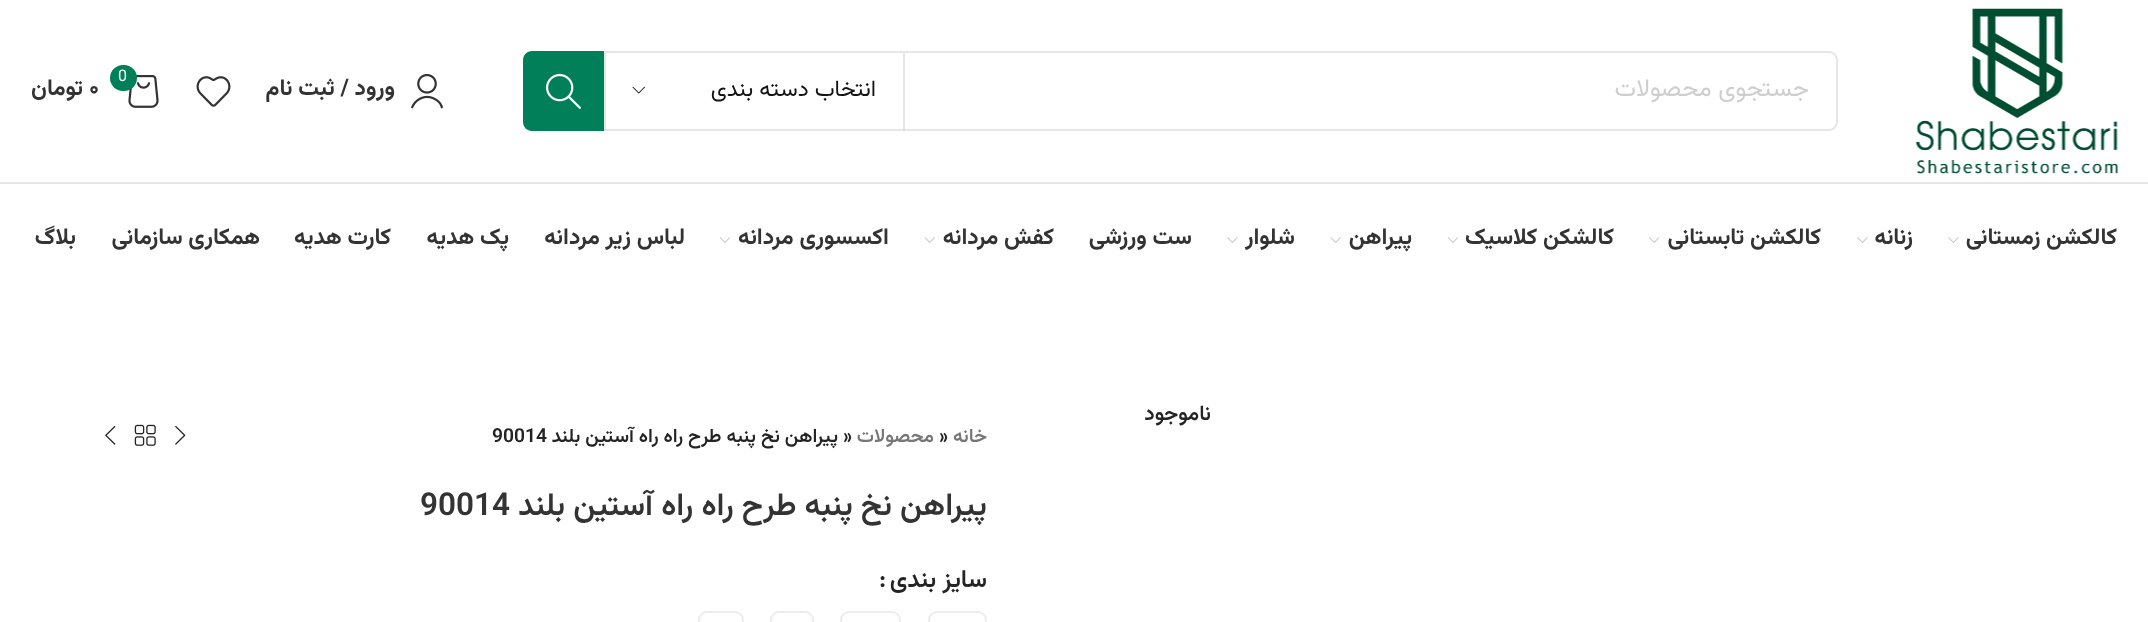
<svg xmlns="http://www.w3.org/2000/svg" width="2148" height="622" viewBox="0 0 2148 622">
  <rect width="100%" height="100%" fill="#fff"/>
  <path d="M0 182h2148v2H0z" fill="#e6e6e6"/>
  <image x="1915" y="8" width="203" height="166" href="img/1.png"/>
  <rect x="524" y="52" width="1313" height="78" rx="8" fill="none" stroke="#e6e6e6" stroke-width="2"/>
  <path d="M903 53h2v77H903z" fill="#0000001a"/>
  <path d="M604 53h2v77H604z" fill="#0000001a"/>
  <image x="632" y="86" width="13" height="8" href="img/2.png"/>
  <path d="M532 51H604V131H532C527 131 523 127 523 122V60C523 55 527 51 532 51Z" fill="#007f59"/>
  <image x="546" y="73" width="35" height="36" href="img/3.png"/>
  <image x="411" y="74" width="32" height="35" href="img/4.png"/>
  <image x="196" y="76" width="35" height="31" href="img/5.png"/>
  <image x="128" y="75" width="31" height="33" href="img/6.png"/>
  <rect x="110" y="65" width="27" height="26" rx="13" fill="#007f59"/>
  <image x="1948" y="237" width="11" height="6" href="img/7.png"/>
  <image x="1857" y="237" width="11" height="6" href="img/7.png"/>
  <image x="1649" y="237" width="11" height="6" href="img/8.png"/>
  <image x="1448" y="237" width="10" height="6" href="img/9.png"/>
  <image x="1330" y="237" width="11" height="6" href="img/10.png"/>
  <image x="1227" y="237" width="11" height="6" href="img/7.png"/>
  <image x="924" y="237" width="11" height="6" href="img/10.png"/>
  <image x="720" y="237" width="10" height="6" href="img/9.png"/>
  <image x="175" y="426" width="11" height="19" href="img/11.png"/>
  <image x="134" y="424" width="22" height="22" href="img/12.png"/>
  <image x="105" y="426" width="11" height="19" href="img/13.png"/>
  <rect x="929" y="612" width="57" height="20" rx="8" fill="none" stroke="#ececec" stroke-width="2"/>
  <rect x="841" y="612" width="59" height="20" rx="8" fill="none" stroke="#ececec" stroke-width="2"/>
  <rect x="771" y="612" width="42" height="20" rx="8" fill="none" stroke="#ececec" stroke-width="2"/>
  <rect x="699" y="612" width="44" height="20" rx="8" fill="none" stroke="#ececec" stroke-width="2"/>
  <text x="1809" y="96" font-family="Vazirmatn" font-size="24.5" direction="rtl" fill="#cecece">جستجوی محصولات</text>
  <text x="876" y="96" font-family="Vazirmatn" font-size="22.75" direction="rtl" fill="#131313">انتخاب دسته بندی</text>
  <text x="395" y="95" font-family="Vazirmatn" font-size="22.75" font-weight="bold" direction="rtl" fill="#333">ورود / ثبت نام</text>
  <text x="118" y="81" font-family="Vazirmatn" font-size="16" fill="#fff">0</text>
  <text x="89" y="95" font-family="Vazirmatn" font-size="22.75" font-weight="bold" fill="#333">۰</text>
  <g font-family="Vazirmatn" font-size="22.75" font-weight="bold" direction="rtl" fill="#333">
    <text x="83" y="95">تومان</text>
    <text x="2117" y="244">کالکشن زمستانی</text>
    <text x="1913" y="244">زنانه</text>
    <text x="1821" y="244">کالکشن تابستانی</text>
    <text x="1614" y="244">کالشکن کلاسیک</text>
    <text x="1412" y="244">پیراهن</text>
    <text x="1295" y="244">شلوار</text>
    <text x="1192" y="244">ست ورزشی</text>
    <text x="1054" y="244">کفش مردانه</text>
    <text x="889" y="244">اکسسوری مردانه</text>
    <text x="685" y="244">لباس زیر مردانه</text>
    <text x="509" y="244">پک هدیه</text>
    <text x="391" y="244">کارت هدیه</text>
    <text x="260" y="244">همکاری سازمانی</text>
    <text x="76" y="244">بلاگ</text>
  </g>
  <text x="1211" y="420" font-family="Vazirmatn" font-size="21" font-weight="600" direction="rtl" fill="#242424">ناموجود</text>
  <text x="987" y="442" font-family="Vazirmatn" font-size="19.25" font-weight="600" direction="rtl" fill="#767676">خانه</text>
  <text x="939" y="442" font-family="Vazirmatn" font-size="19.25" font-weight="600" fill="#242424">»</text>
  <text x="934" y="442" font-family="Vazirmatn" font-size="19.25" font-weight="600" direction="rtl" fill="#767676">محصولات</text>
  <text x="843" y="442" font-family="Vazirmatn" font-size="19.25" font-weight="600" fill="#242424">»</text>
  <text x="838" y="442" font-family="Vazirmatn" font-size="19.25" font-weight="600" direction="rtl" fill="#242424">پیراهن نخ پنبه طرح راه راه آستین بلند</text>
  <text x="492" y="442" font-family="Vazirmatn" font-size="19.25" font-weight="600" fill="#242424">90014</text>
  <g font-family="Vazirmatn" font-size="31.5" font-weight="600" direction="rtl" fill="#333">
    <text x="987" y="515">پیراهن نخ پنبه طرح راه راه</text>
    <text x="653" y="515">آستین بلند</text>
  </g>
  <text x="420" y="515" font-family="Vazirmatn" font-size="31.5" font-weight="600" fill="#333">90014</text>
  <text x="987" y="587" font-family="Vazirmatn" font-size="24.5" font-weight="600" direction="rtl" fill="#242424">سایز بندی</text>
  <text x="879" y="587" font-family="Vazirmatn" font-size="24.5" font-weight="600" fill="#242424">:</text>
</svg>
